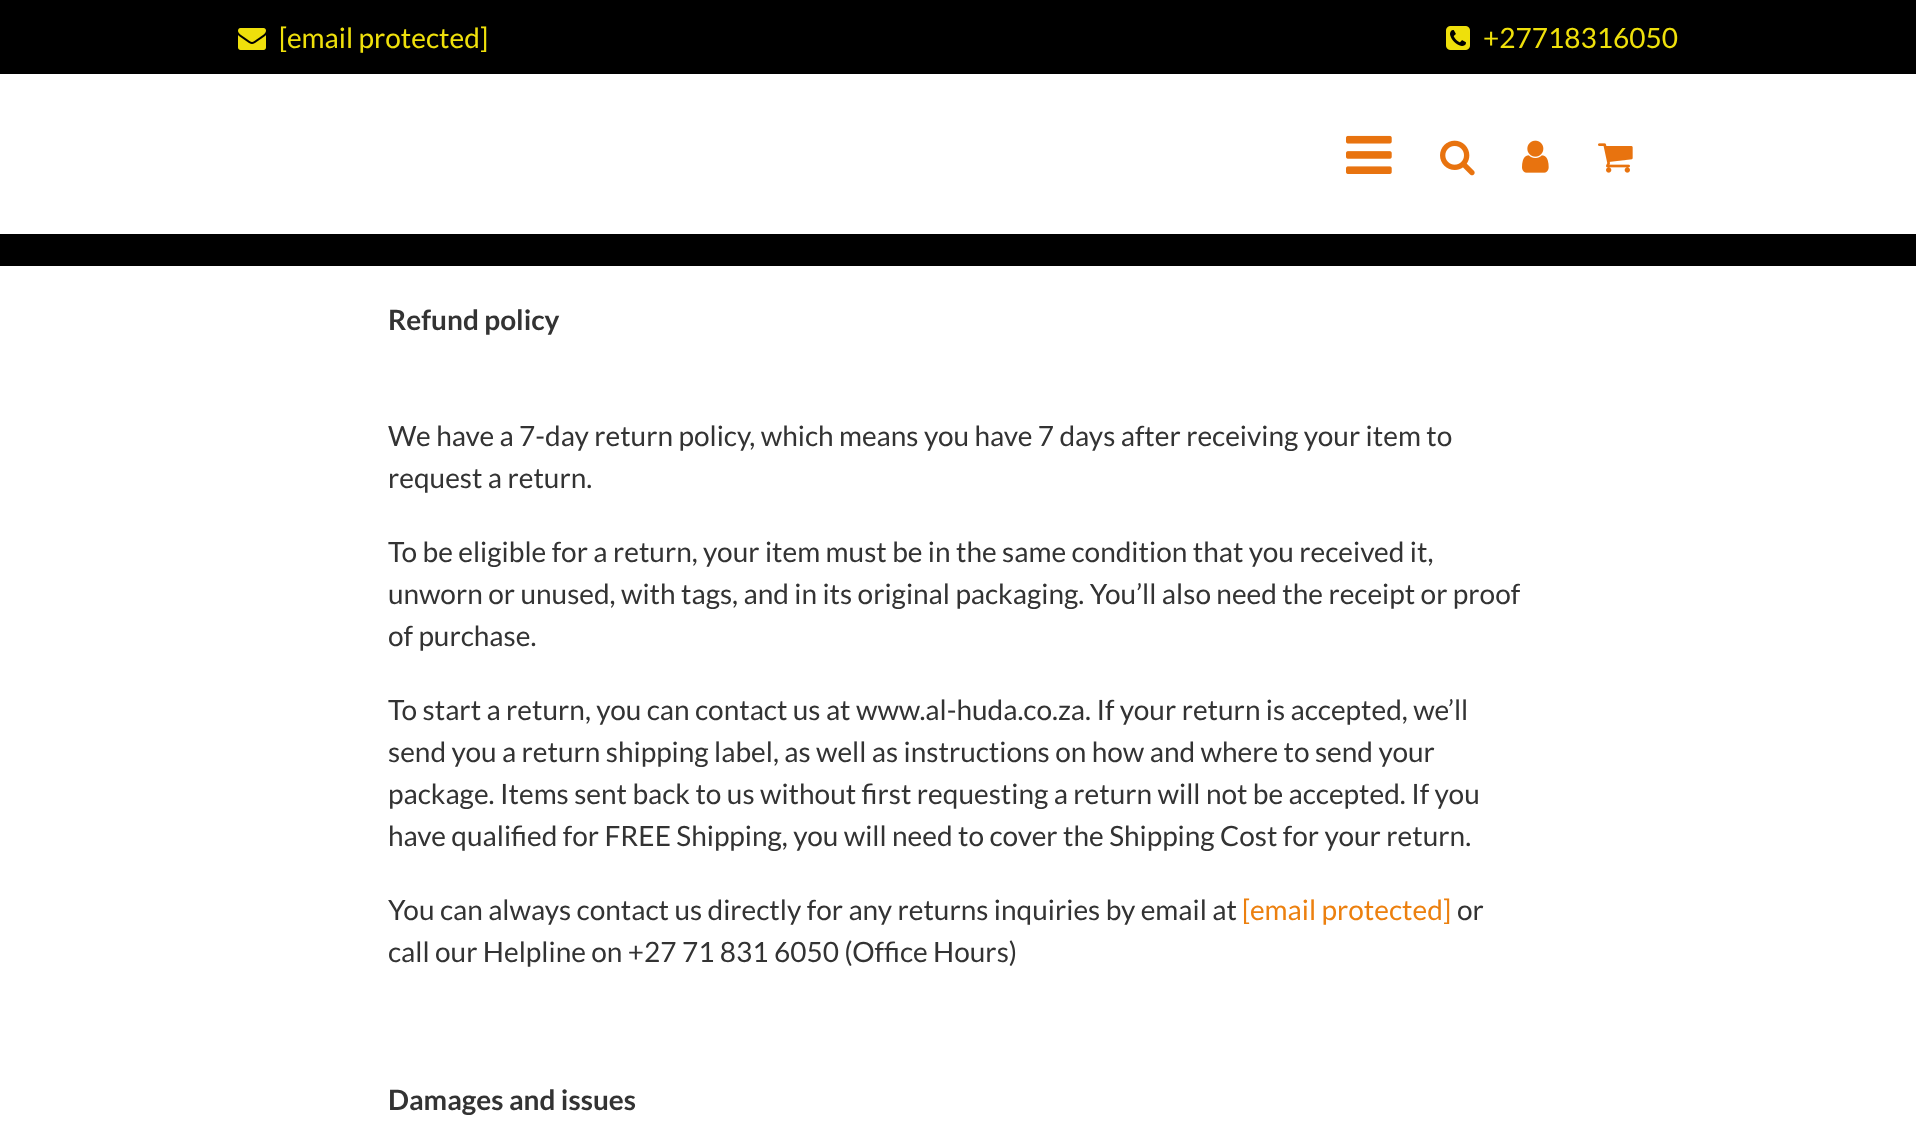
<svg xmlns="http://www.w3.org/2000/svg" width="1916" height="1124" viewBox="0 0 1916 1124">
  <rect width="100%" height="100%" fill="#fff"/>
  <path d="M0 0h1916v74H0z" fill="#000"/>
  <image x="238" y="28" width="28" height="22" href="img/1.png"/>
  <image x="1446" y="26" width="24" height="24" href="img/2.png"/>
  <path d="M0 234h1916v32H0z" fill="#000"/>
  <path d="M-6 74h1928v172H-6z" fill="#0000000f" filter="blur(6px)"/>
  <path d="M0 74h1916v160H0z" fill="#fff"/>
  <image x="1346" y="135" width="46" height="39" href="img/3.png"/>
  <image x="1440" y="140" width="35" height="36" href="img/4.png"/>
  <image x="1522" y="140" width="27" height="33" href="img/5.png"/>
  <image x="1598" y="143" width="35" height="30" href="img/6.png"/>
  <g font-family="Lato" font-size="28" fill="#efe00b">
    <text x="279" y="48">[email protected]</text>
    <text x="1483" y="48">+27718316050</text>
  </g>
  <text x="388" y="330" font-family="Lato" font-size="28" font-weight="bold" fill="#333">Refund policy</text>
  <g font-family="Lato" font-size="28" fill="#333">
    <text x="388" y="446">We have a 7-day return policy, which means you have 7 days after receiving your item to</text>
    <text x="388" y="488">request a return.</text>
    <text x="388" y="562">To be eligible for a return, your item must be in the same condition that you received it,</text>
    <text x="388" y="604">unworn or unused, with tags, and in its original packaging. You’ll also need the receipt or proof</text>
    <text x="388" y="646">of purchase.</text>
    <text x="388" y="720">To start a return, you can contact us at www.al-huda.co.za. If your return is accepted, we’ll</text>
    <text x="388" y="762">send you a return shipping label, as well as instructions on how and where to send your</text>
    <text x="388" y="804">package. Items sent back to us without first requesting a return will not be accepted. If you</text>
    <text x="388" y="846">have qualified for FREE Shipping, you will need to cover the Shipping Cost for your return.</text>
    <text x="388" y="920">You can always contact us directly for any returns inquiries by email at</text>
  </g>
  <text x="1242" y="920" font-family="Lato" font-size="28" fill="#ec800f">[email protected]</text>
  <g font-family="Lato" font-size="28" fill="#333">
    <text x="1457" y="920">or</text>
    <text x="388" y="962">call our Helpline on +27 71 831 6050 (Office Hours)</text>
  </g>
  <text x="388" y="1110" font-family="Lato" font-size="28" font-weight="bold" fill="#333">Damages and issues</text>
</svg>
